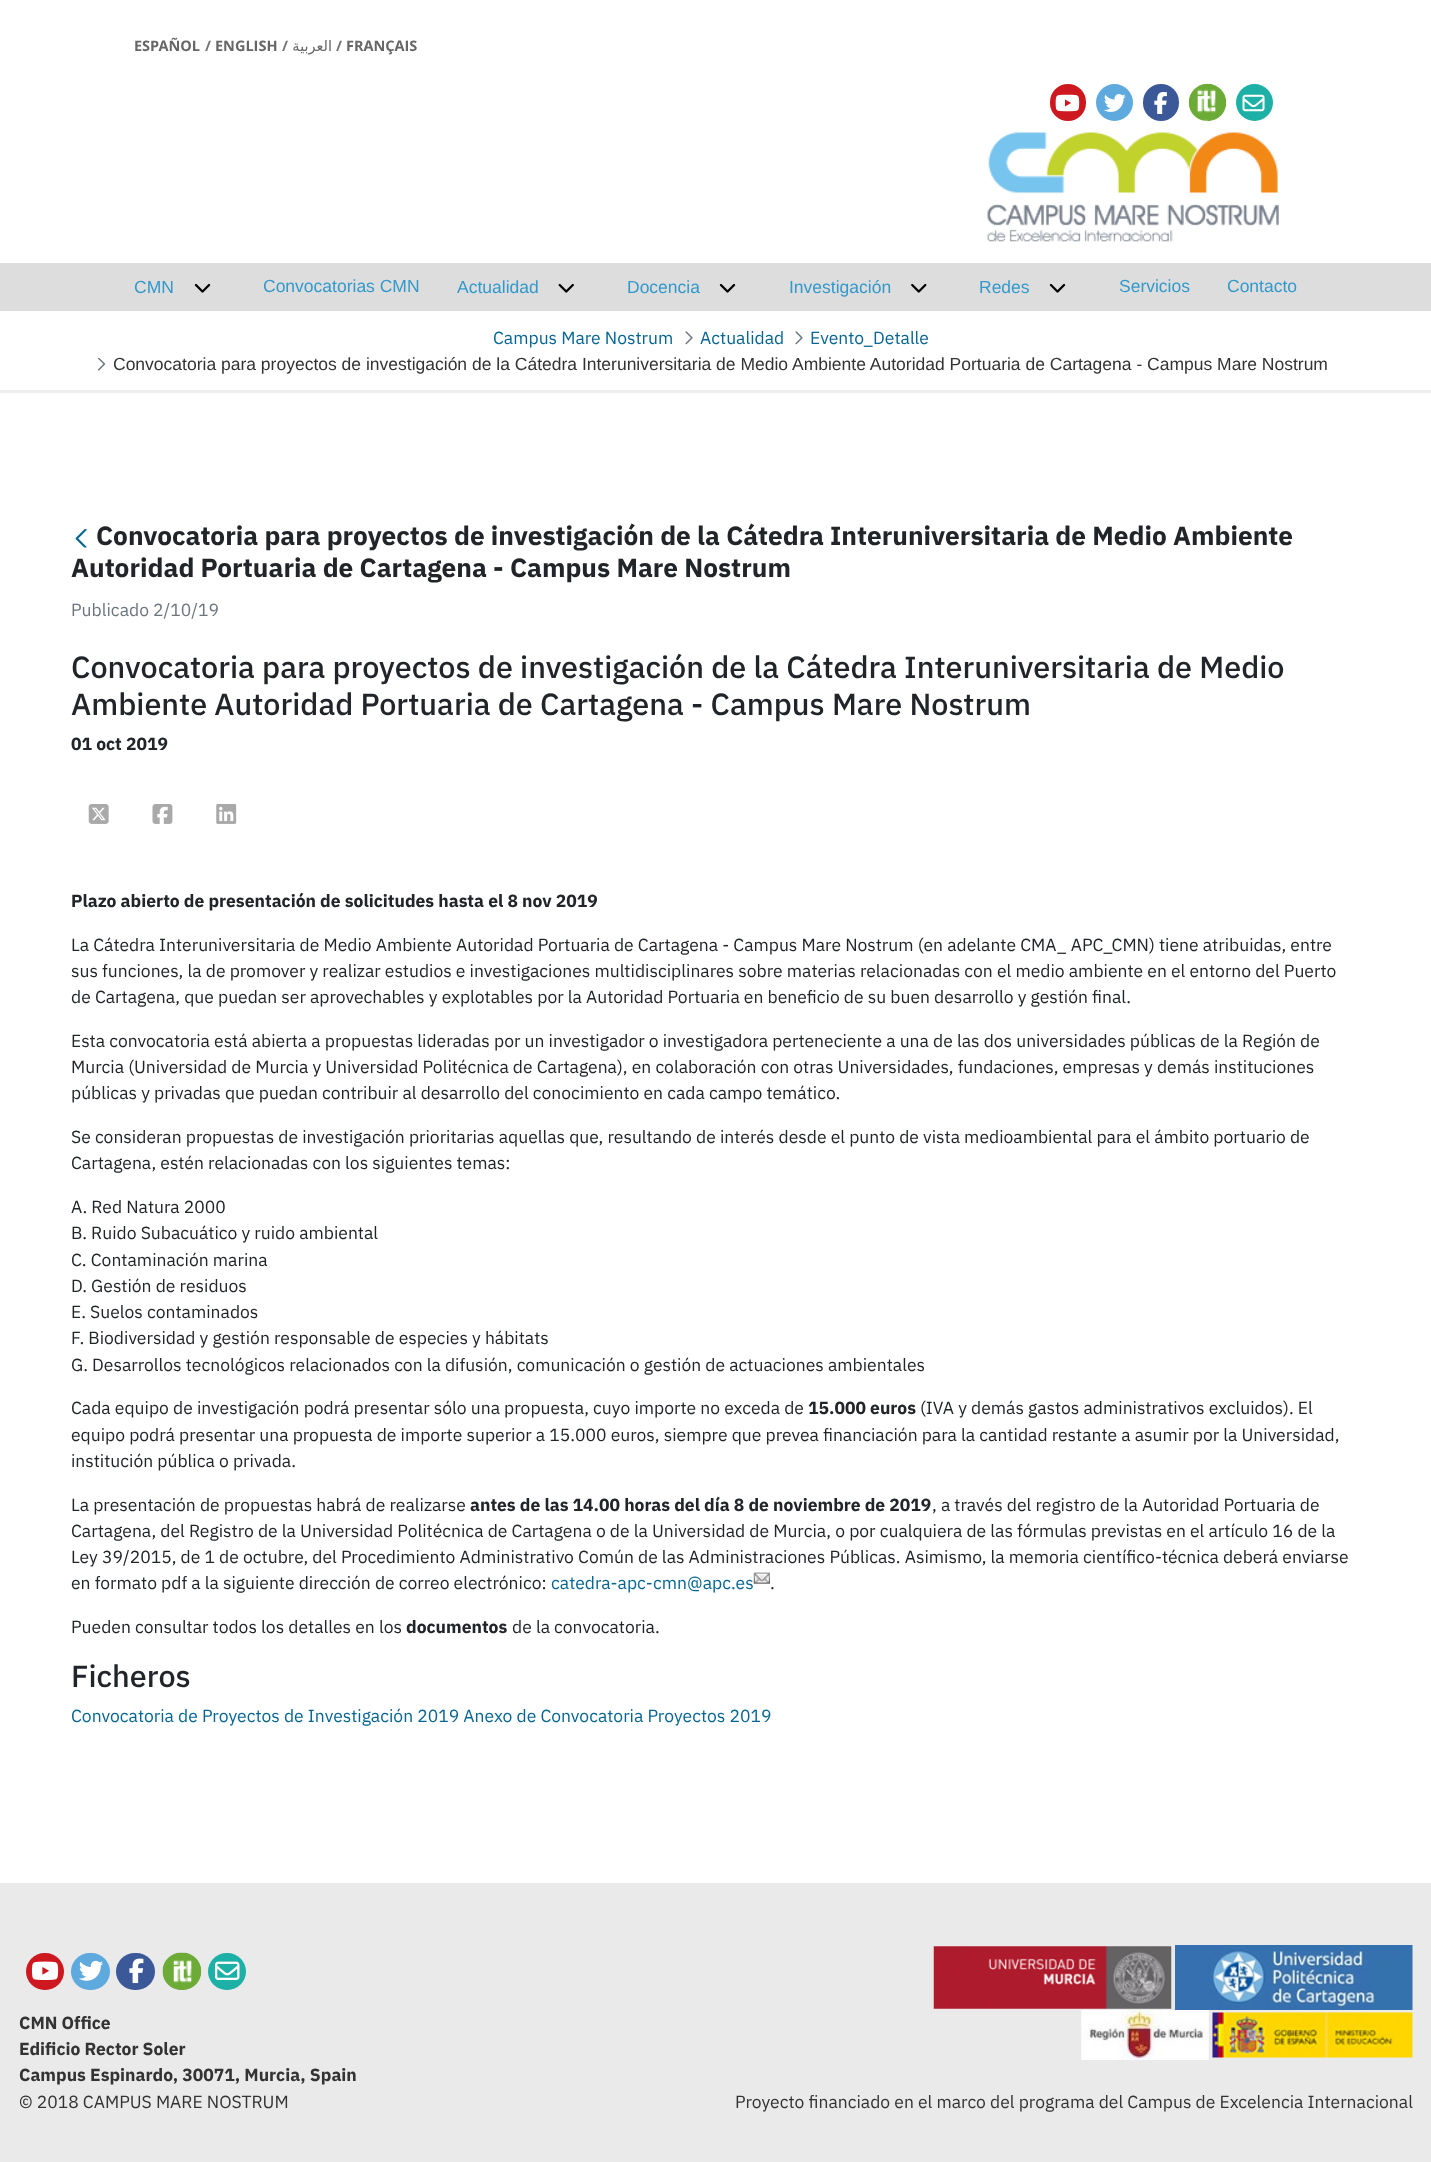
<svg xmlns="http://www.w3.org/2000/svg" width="1431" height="2162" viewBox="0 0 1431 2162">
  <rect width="100%" height="100%" fill="#fff"/>
  <rect x="1050" y="84" width="36" height="37" rx="18" fill="#cc181e"/>
  <image x="1055" y="94" width="25" height="18" href="img/1.png"/>
  <circle cx="1114.5" cy="102.5" r="18.5" fill="#5ea9dd"/>
  <image x="1104" y="94" width="22" height="18" href="img/2.png"/>
  <rect x="1143" y="84" width="36" height="37" rx="18" fill="#3b5999"/>
  <image x="1154" y="92" width="13" height="22" href="img/3.png"/>
  <image x="1188" y="83" width="39" height="39" href="img/4.png"/>
  <circle cx="1254.5" cy="102.5" r="18.5" fill="#1cb0a7"/>
  <image x="1242" y="94" width="23" height="18" href="img/5.png"/>
  <image x="987" y="131" width="292" height="111" href="img/6.png"/>
  <path d="M0 263h1431v48H0z" fill="#ddd"/>
  <image x="194" y="283" width="17" height="10" href="img/7.png"/>
  <image x="558" y="283" width="16" height="10" href="img/8.png"/>
  <image x="719" y="283" width="17" height="10" href="img/7.png"/>
  <image x="911" y="283" width="16" height="10" href="img/9.png"/>
  <image x="1049" y="283" width="17" height="10" href="img/7.png"/>
  <image x="685" y="331" width="8" height="14" href="img/10.png"/>
  <image x="795" y="331" width="8" height="14" href="img/10.png"/>
  <image x="97" y="358" width="9" height="13" href="img/11.png"/>
  <path d="M0 390h1431v3H0z" fill="#eee"/>
  <image x="75" y="529" width="12" height="19" href="img/12.png"/>
  <image x="88" y="804" width="21" height="20" href="img/13.png"/>
  <image x="152" y="804" width="21" height="20" href="img/14.png"/>
  <image x="216" y="804" width="21" height="20" href="img/15.png"/>
  <image x="753" y="1572" width="17" height="12" href="img/16.png"/>
  <path d="M0 1883h1431v279H0z" fill="#eaeaea"/>
  <rect x="26" y="1953" width="38" height="37" rx="18.5" fill="#cc181e"/>
  <image x="31" y="1961" width="28" height="19" href="img/17.png"/>
  <rect x="71" y="1953" width="39" height="37" rx="18.5" fill="#5ea9dd"/>
  <image x="79" y="1960" width="25" height="21" href="img/18.png"/>
  <rect x="116" y="1953" width="39" height="37" rx="18.5" fill="#3b5999"/>
  <image x="129" y="1958" width="15" height="26" href="img/19.png"/>
  <rect x="163" y="1953" width="38" height="37" rx="18.5" fill="#9c9c9c"/>
  <image x="162" y="1952" width="40" height="38" href="img/20.png"/>
  <rect x="208" y="1953" width="38" height="37" rx="18.5" fill="#1cb0a7"/>
  <image x="215" y="1961" width="25" height="19" href="img/21.png"/>
  <image x="933" y="1946" width="239" height="63" href="img/22.png"/>
  <image x="1175" y="1945" width="238" height="65" href="img/23.png"/>
  <image x="1081" y="2010" width="128" height="50" href="img/24.png"/>
  <image x="1212" y="2012" width="201" height="46" href="img/25.png"/>
  <text x="134" y="51" font-family="Open Sans" font-size="14.5" font-weight="bold" fill="#666">ESPAÑOL</text>
  <text x="205" y="51" font-family="Open Sans" font-size="14.5" font-weight="bold" fill="#737373">/</text>
  <text x="215" y="51" font-family="Open Sans" font-size="14.5" font-weight="bold" fill="#666">ENGLISH</text>
  <text x="282" y="51" font-family="Open Sans" font-size="14.5" font-weight="bold" fill="#737373">/</text>
  <text x="332" y="51" font-family="DejaVu Sans" font-size="14.5" direction="rtl" fill="#666">العربية</text>
  <text x="336" y="51" font-family="Open Sans" font-size="14.5" font-weight="bold" fill="#737373">/</text>
  <text x="346" y="51" font-family="Open Sans" font-size="14.5" font-weight="bold" fill="#666">FRANÇAIS</text>
  <g font-family="Liberation Sans" font-size="17.5" fill="#3399cb">
    <text x="134" y="293">CMN</text>
    <text x="263" y="292">Convocatorias CMN</text>
    <text x="457" y="293">Actualidad</text>
    <text x="627" y="293">Docencia</text>
    <text x="789" y="293">Investigación</text>
    <text x="979" y="293">Redes</text>
    <text x="1119" y="292">Servicios</text>
    <text x="1227" y="292">Contacto</text>
  </g>
  <g font-family="IBM Plex Sans" font-size="17.5" fill="#066593">
    <text x="493" y="344">Campus Mare Nostrum</text>
    <text x="700" y="344">Actualidad</text>
    <text x="810" y="344">Evento_Detalle</text>
  </g>
  <text x="113" y="370" font-family="Liberation Sans" font-size="17.5" fill="#333">Convocatoria para proyectos de investigación de la Cátedra Interuniversitaria de Medio Ambiente Autoridad Portuaria de Cartagena - Campus Mare Nostrum</text>
  <g font-family="IBM Plex Sans" font-size="26.25" font-weight="bold" fill="#212529">
    <text x="96" y="545">Convocatoria para proyectos de investigación de la Cátedra Interuniversitaria de Medio Ambiente</text>
    <text x="71" y="577">Autoridad Portuaria de Cartagena - Campus Mare Nostrum</text>
  </g>
  <text x="71" y="616" font-family="IBM Plex Sans" font-size="17.5" fill="#6c757d">Publicado 2/10/19</text>
  <g font-family="IBM Plex Sans" font-size="30.6" font-weight="500" fill="#212529">
    <text x="71" y="678">Convocatoria para proyectos de investigación de la Cátedra Interuniversitaria de Medio</text>
    <text x="71" y="715">Ambiente Autoridad Portuaria de Cartagena - Campus Mare Nostrum</text>
  </g>
  <g font-family="IBM Plex Sans" font-size="17.5" font-weight="bold" fill="#212529">
    <text x="71" y="750">01 oct 2019</text>
    <text x="71" y="907">Plazo abierto de presentación de solicitudes hasta el 8 nov 2019</text>
  </g>
  <g font-family="IBM Plex Sans" font-size="17.5" fill="#212529">
    <text x="71" y="951">La Cátedra Interuniversitaria de Medio Ambiente Autoridad Portuaria de Cartagena - Campus Mare Nostrum (en adelante CMA_ APC_CMN) tiene atribuidas, entre</text>
    <text x="71" y="977">sus funciones, la de promover y realizar estudios e investigaciones multidisciplinares sobre materias relacionadas con el medio ambiente en el entorno del Puerto</text>
    <text x="71" y="1003">de Cartagena, que puedan ser aprovechables y explotables por la Autoridad Portuaria en beneficio de su buen desarrollo y gestión final.</text>
    <text x="71" y="1047">Esta convocatoria está abierta a propuestas lideradas por un investigador o investigadora perteneciente a una de las dos universidades públicas de la Región de</text>
    <text x="71" y="1073">Murcia (Universidad de Murcia y Universidad Politécnica de Cartagena), en colaboración con otras Universidades, fundaciones, empresas y demás instituciones</text>
    <text x="71" y="1099">públicas y privadas que puedan contribuir al desarrollo del conocimiento en cada campo temático.</text>
    <text x="71" y="1143">Se consideran propuestas de investigación prioritarias aquellas que, resultando de interés desde el punto de vista medioambiental para el ámbito portuario de</text>
    <text x="71" y="1169">Cartagena, estén relacionadas con los siguientes temas:</text>
    <text x="71" y="1213">A. Red Natura 2000</text>
    <text x="71" y="1239">B. Ruido Subacuático y ruido ambiental</text>
    <text x="71" y="1266">C. Contaminación marina</text>
    <text x="71" y="1292">D. Gestión de residuos</text>
    <text x="71" y="1318">E. Suelos contaminados</text>
    <text x="71" y="1344">F. Biodiversidad y gestión responsable de especies y hábitats</text>
    <text x="71" y="1371">G. Desarrollos tecnológicos relacionados con la difusión, comunicación o gestión de actuaciones ambientales</text>
    <text x="71" y="1414">Cada equipo de investigación podrá presentar sólo una propuesta, cuyo importe no exceda de</text>
  </g>
  <text x="808" y="1414" font-family="IBM Plex Sans" font-size="17.5" font-weight="bold" fill="#212529">15.000 euros</text>
  <g font-family="IBM Plex Sans" font-size="17.5" fill="#212529">
    <text x="920" y="1414">(IVA y demás gastos administrativos excluidos). El</text>
    <text x="71" y="1441">equipo podrá presentar una propuesta de importe superior a 15.000 euros, siempre que prevea financiación para la cantidad restante a asumir por la Universidad,</text>
    <text x="71" y="1467">institución pública o privada.</text>
    <text x="71" y="1511">La presentación de propuestas habrá de realizarse</text>
  </g>
  <text x="470" y="1511" font-family="IBM Plex Sans" font-size="17.5" font-weight="bold" fill="#212529">antes de las 14.00 horas del día 8 de noviembre de 2019</text>
  <g font-family="IBM Plex Sans" font-size="17.5" fill="#212529">
    <text x="932" y="1511">, a través del registro de la Autoridad Portuaria de</text>
    <text x="71" y="1537">Cartagena, del Registro de la Universidad Politécnica de Cartagena o de la Universidad de Murcia, o por cualquiera de las fórmulas previstas en el artículo 16 de la</text>
    <text x="71" y="1563">Ley 39/2015, de 1 de octubre, del Procedimiento Administrativo Común de las Administraciones Públicas. Asimismo, la memoria científico-técnica deberá enviarse</text>
    <text x="71" y="1589">en formato pdf a la siguiente dirección de correo electrónico:</text>
  </g>
  <text x="551" y="1589" font-family="IBM Plex Sans" font-size="17.5" fill="#066593">catedra-apc-cmn@apc.es</text>
  <g font-family="IBM Plex Sans" font-size="17.5" fill="#212529">
    <text x="770" y="1589">.</text>
    <text x="71" y="1633">Pueden consultar todos los detalles en los</text>
  </g>
  <text x="406" y="1633" font-family="IBM Plex Sans" font-size="17.5" font-weight="bold" fill="#212529">documentos</text>
  <text x="512" y="1633" font-family="IBM Plex Sans" font-size="17.5" fill="#212529">de la convocatoria.</text>
  <text x="71" y="1687" font-family="IBM Plex Sans" font-size="30.6" font-weight="500" fill="#212529">Ficheros</text>
  <text x="71" y="1722" font-family="IBM Plex Sans" font-size="17.5" fill="#066593">Convocatoria de Proyectos de Investigación 2019 Anexo de Convocatoria Proyectos 2019</text>
  <g font-family="IBM Plex Sans" font-size="17.5" font-weight="bold" fill="#333">
    <text x="19" y="2029">CMN Office</text>
    <text x="19" y="2055">Edificio Rector Soler</text>
    <text x="19" y="2081">Campus Espinardo, 30071, Murcia, Spain</text>
  </g>
  <g font-family="IBM Plex Sans" font-size="17.5" fill="#333">
    <text x="19" y="2108">© 2018 CAMPUS MARE NOSTRUM</text>
    <text x="735" y="2108">Proyecto financiado en el marco del programa del Campus de Excelencia Internacional</text>
  </g>
</svg>
